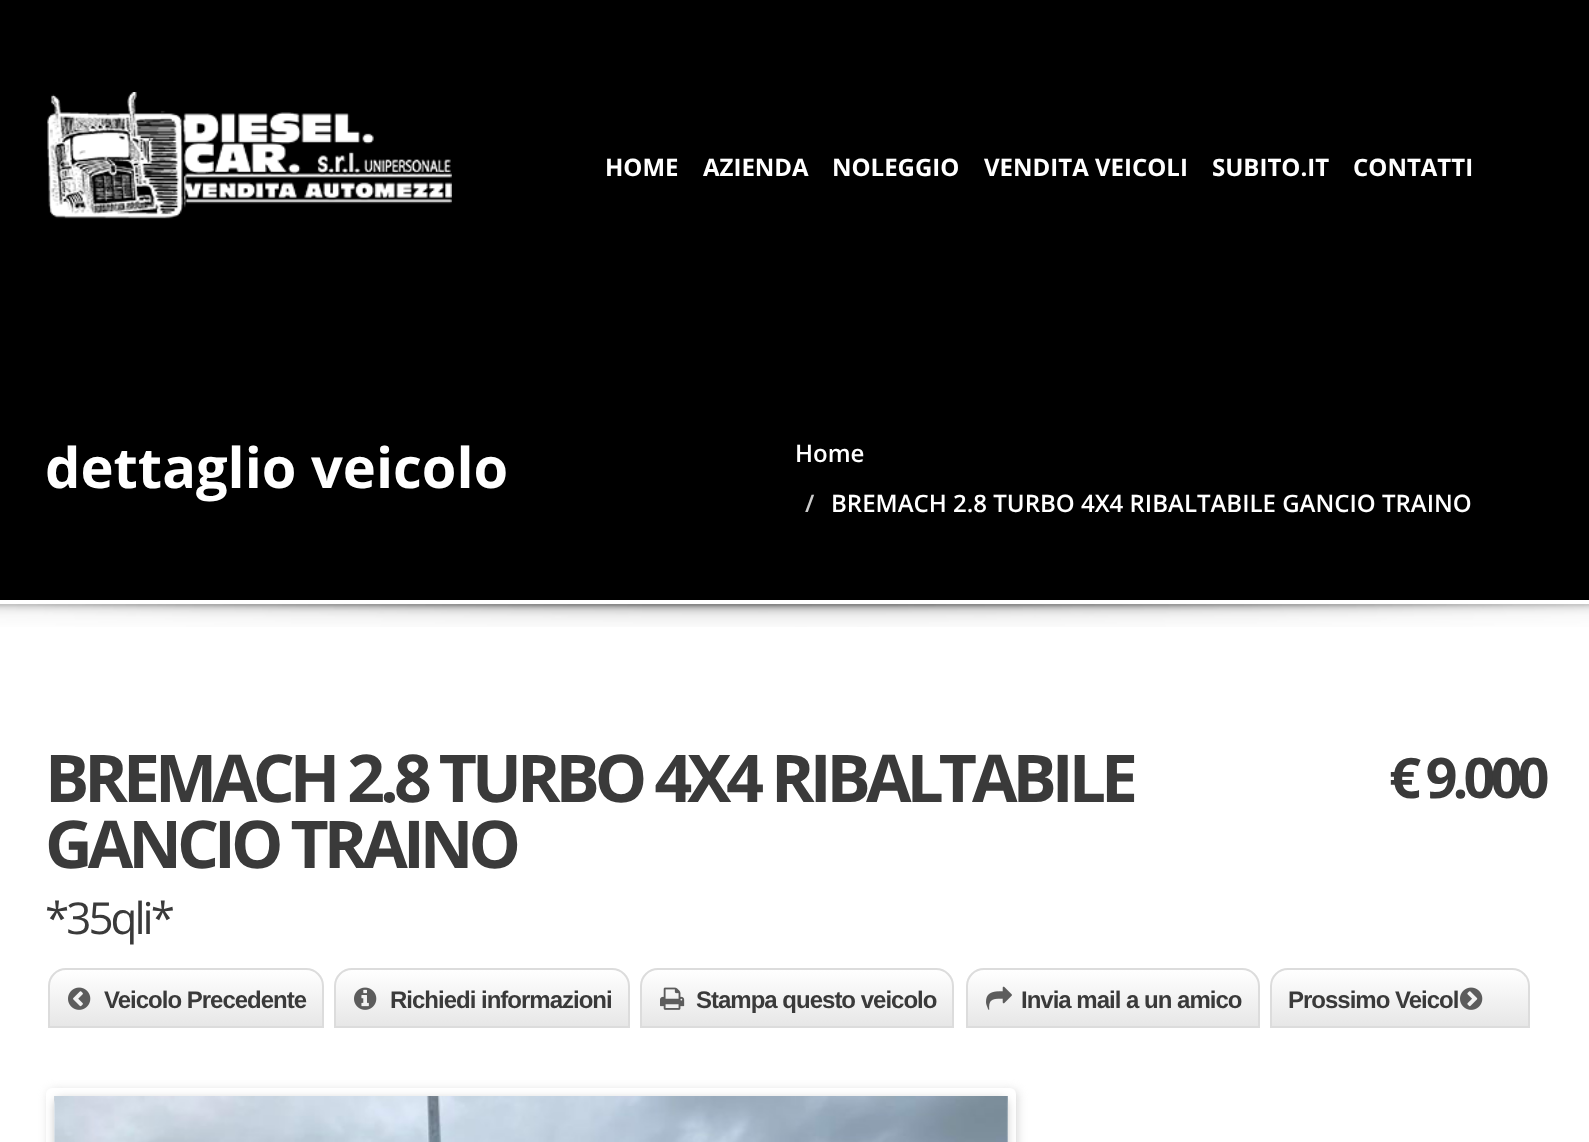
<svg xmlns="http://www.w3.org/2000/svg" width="1589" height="1142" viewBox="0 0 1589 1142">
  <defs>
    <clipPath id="clip1"><path d="M66 968H306C316 968 324 976 324 986V1028H48V986C48 976 56 968 66 968Z"/></clipPath>
    <linearGradient id="g1" gradientUnits="userSpaceOnUse" x1="186" y1="970" x2="186" y2="1026"><stop offset="0" stop-color="#1e5799"/><stop offset="0" stop-color="#fff"/><stop offset="0.99" stop-color="#e7e7e7"/><stop offset="1" stop-color="#e7e7e7"/></linearGradient>
    <clipPath id="clip2"><path d="M352 968H612C622 968 630 976 630 986V1028H334V986C334 976 342 968 352 968Z"/></clipPath>
    <linearGradient id="g2" gradientUnits="userSpaceOnUse" x1="482" y1="970" x2="482" y2="1026"><stop offset="0" stop-color="#1e5799"/><stop offset="0" stop-color="#fff"/><stop offset="0.99" stop-color="#e7e7e7"/><stop offset="1" stop-color="#e7e7e7"/></linearGradient>
    <clipPath id="clip3"><path d="M658 968H936C946 968 954 976 954 986V1028H640V986C640 976 648 968 658 968Z"/></clipPath>
    <linearGradient id="g3" gradientUnits="userSpaceOnUse" x1="797" y1="970" x2="797" y2="1026"><stop offset="0" stop-color="#1e5799"/><stop offset="0" stop-color="#fff"/><stop offset="0.99" stop-color="#e7e7e7"/><stop offset="1" stop-color="#e7e7e7"/></linearGradient>
    <clipPath id="clip4"><path d="M984 968H1242C1252 968 1260 976 1260 986V1028H966V986C966 976 974 968 984 968Z"/></clipPath>
    <linearGradient id="g4" gradientUnits="userSpaceOnUse" x1="1113" y1="970" x2="1113" y2="1026"><stop offset="0" stop-color="#1e5799"/><stop offset="0" stop-color="#fff"/><stop offset="0.99" stop-color="#e7e7e7"/><stop offset="1" stop-color="#e7e7e7"/></linearGradient>
    <clipPath id="clip5"><path d="M1288 968H1512C1522 968 1530 976 1530 986V1028H1270V986C1270 976 1278 968 1288 968Z"/></clipPath>
    <linearGradient id="g5" gradientUnits="userSpaceOnUse" x1="1400" y1="970" x2="1400" y2="1026"><stop offset="0" stop-color="#1e5799"/><stop offset="0" stop-color="#fff"/><stop offset="0.99" stop-color="#e7e7e7"/><stop offset="1" stop-color="#e7e7e7"/></linearGradient>
  </defs>
  <rect width="100%" height="100%" fill="#fff"/>
  <path d="M0 0h1589v600H0z" fill="#000"/>
  <image x="47" y="92" width="405" height="127" href="img/1.png"/>
  <image x="0" y="604" width="1589" height="23" href="img/2.png"/>
  <g clip-path="url(#clip1)">
    <path d="M48 970h276v56H48z" fill="url(#g1)"/>
  </g>
  <path d="M66 969H306C315.5 969 323 976.5 323 986V1027H49V986C49 976.5 56.5 969 66 969Z" fill="none" stroke="#dcdcdc" stroke-width="2"/>
  <image x="68" y="987" width="23" height="23" href="img/3.png"/>
  <g clip-path="url(#clip2)">
    <path d="M334 970h296v56H334z" fill="url(#g2)"/>
  </g>
  <path d="M352 969H612C621.5 969 629 976.5 629 986V1027H335V986C335 976.5 342.5 969 352 969Z" fill="none" stroke="#dcdcdc" stroke-width="2"/>
  <image x="354" y="987" width="23" height="23" href="img/4.png"/>
  <g clip-path="url(#clip3)">
    <path d="M640 970h314v56H640z" fill="url(#g3)"/>
  </g>
  <path d="M658 969H936C945.5 969 953 976.5 953 986V1027H641V986C641 976.5 648.5 969 658 969Z" fill="none" stroke="#dcdcdc" stroke-width="2"/>
  <image x="660" y="987" width="25" height="23" href="img/5.png"/>
  <g clip-path="url(#clip4)">
    <path d="M966 970h294v56H966z" fill="url(#g4)"/>
  </g>
  <path d="M984 969H1242C1251.5 969 1259 976.5 1259 986V1027H967V986C967 976.5 974.5 969 984 969Z" fill="none" stroke="#dcdcdc" stroke-width="2"/>
  <image x="986" y="986" width="26" height="24" href="img/6.png"/>
  <g clip-path="url(#clip5)">
    <path d="M1270 970h260v56H1270z" fill="url(#g5)"/>
  </g>
  <path d="M1288 969H1512C1521.5 969 1529 976.5 1529 986V1027H1271V986C1271 976.5 1278.5 969 1288 969Z" fill="none" stroke="#dcdcdc" stroke-width="2"/>
  <image x="1460" y="987" width="23" height="23" href="img/7.png"/>
  <rect x="48" y="1090" width="970" height="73" rx="6" fill="#ccccccbf" filter="blur(5px)"/>
  <rect x="50" y="1092" width="962" height="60" rx="2" fill="none" stroke="#fff" stroke-width="8"/>
  <rect x="54" y="1098" width="954" height="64" rx="8" fill="#00000033" filter="blur(4px)"/>
  <rect x="54" y="1096" width="954" height="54" rx="8" fill="#fff"/>
  <image x="54" y="1096" width="954" height="46" href="img/8.png"/>
  <image x="1007" y="1096" width="1" height="46" href="img/9.png"/>
  <g font-family="Open Sans" font-size="24" font-weight="bold" fill="#fff">
    <text x="605" y="176">HOME</text>
    <text x="703" y="176">AZIENDA</text>
    <text x="832" y="176">NOLEGGIO</text>
    <text x="984" y="176">VENDITA VEICOLI</text>
    <text x="1212" y="176">SUBITO.IT</text>
    <text x="1353" y="176">CONTATTI</text>
  </g>
  <text x="45" y="488" font-family="Open Sans" font-size="56" font-weight="bold" fill="#fff">dettaglio veicolo</text>
  <text x="795" y="462" font-family="Open Sans" font-size="24" font-weight="600" fill="#fff">Home</text>
  <text x="805" y="512" font-family="Open Sans" font-size="24" font-weight="600" fill="#ccc">/</text>
  <text x="831" y="512" font-family="Open Sans" font-size="24" font-weight="600" fill="#fff">BREMACH 2.8 TURBO 4X4 RIBALTABILE GANCIO TRAINO</text>
  <g font-family="Open Sans" font-size="66" font-weight="bold" letter-spacing="-5" fill="#3a3a3a">
    <text x="45" y="802">BREMACH 2.8 TURBO 4X4 RIBALTABILE</text>
    <text x="45" y="868">GANCIO TRAINO</text>
  </g>
  <text x="45" y="934" font-family="Open Sans" font-size="44" letter-spacing="-3" fill="#3a3a3a">*35qli*</text>
  <text x="1389" y="798" font-family="Open Sans" font-size="56" font-weight="bold" letter-spacing="-5" fill="#3a3a3a">€ 9.000</text>
  <g font-family="Liberation Sans" font-size="24" font-weight="bold" letter-spacing="-1" fill="#3a3a3a">
    <text x="104" y="1008">Veicolo Precedente</text>
    <text x="390" y="1008">Richiedi informazioni</text>
    <text x="696" y="1008">Stampa questo veicolo</text>
    <text x="1021" y="1008">Invia mail a un amico</text>
    <text x="1288" y="1008">Prossimo Veicol</text>
  </g>
</svg>
